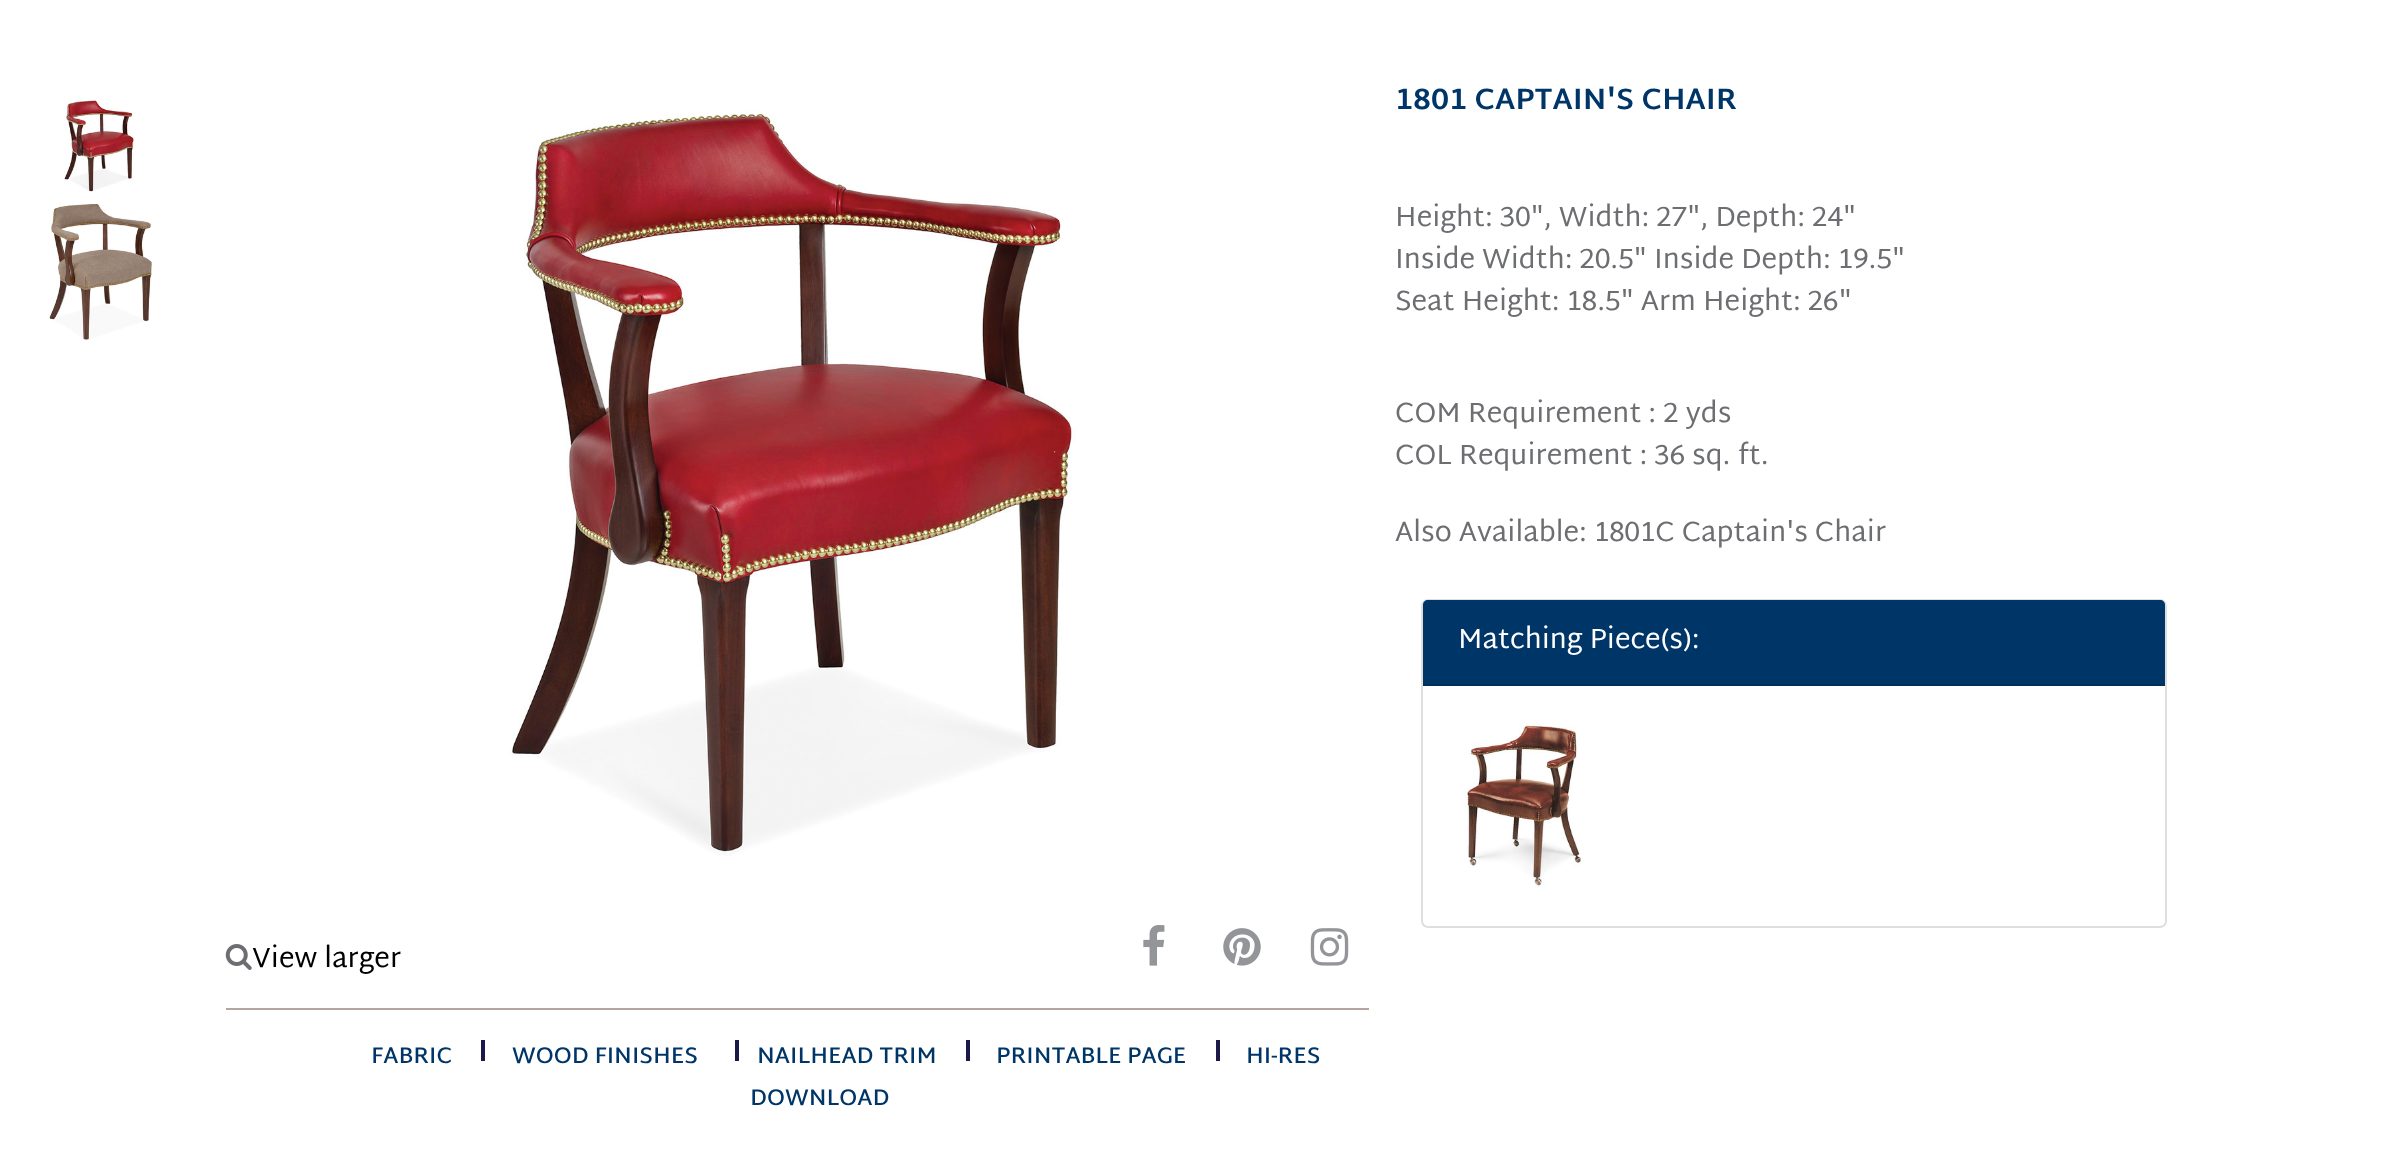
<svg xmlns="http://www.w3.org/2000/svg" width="2391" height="1150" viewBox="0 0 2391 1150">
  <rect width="100%" height="100%" fill="#fff"/>
  <image x="64" y="97" width="71" height="95" href="img/1.png"/>
  <image x="49" y="203" width="103" height="137" href="img/2.png"/>
  <rect x="1422" y="600" width="744" height="327" rx="6" fill="none" stroke="#dfdfdf" stroke-width="2"/>
  <path d="M1428 600H2160C2163 600 2165 602 2165 605V686H1423V605C1423 602 1425 600 1428 600Z" fill="#003568"/>
  <path d="M1423 684h742v2H1423z" fill="#002e5b"/>
  <image x="1463" y="722" width="118" height="165" href="img/3.png"/>
  <image x="509" y="109" width="567" height="747" href="img/4.png"/>
  <image x="225" y="944" width="27" height="26" href="img/5.png"/>
  <image x="1143" y="925" width="22" height="41" href="img/6.png"/>
  <image x="1223" y="928" width="38" height="38" href="img/7.png"/>
  <image x="1310" y="928" width="39" height="38" href="img/8.png"/>
  <path d="M226 1008h1143v2H226z" fill="#b4a59f"/>
  <path d="M481 1040h4v21H481z" fill="#1a1948"/>
  <path d="M735 1040h4v21H735z" fill="#1a1948"/>
  <path d="M966 1040h4v21H966z" fill="#1a1948"/>
  <path d="M1216 1040h4v21H1216z" fill="#1a1948"/>
  <text x="1395" y="109" font-family="Martel Sans" font-size="29.75" font-weight="bold" fill="#003568">1801 CAPTAIN'S CHAIR</text>
  <g font-family="Martel Sans" font-size="28" fill="#6d6e71">
    <text x="1395" y="226">Height: 30", Width: 27", Depth: 24"</text>
    <text x="1395" y="268">Inside Width: 20.5" Inside Depth: 19.5"</text>
    <text x="1395" y="310">Seat Height: 18.5" Arm Height: 26"</text>
    <text x="1395" y="422">COM Requirement : 2 yds</text>
    <text x="1395" y="464">COL Requirement : 36 sq. ft.</text>
    <text x="1395" y="541">Also Available: 1801C Captain's Chair</text>
  </g>
  <text x="1458" y="648" font-family="Martel Sans" font-size="28" fill="#fff">Matching Piece(s):</text>
  <text x="252" y="967" font-family="Martel Sans" font-size="28" fill="#000">View larger</text>
  <g font-family="Martel Sans" font-size="22.75" font-weight="600" fill="#003568">
    <text x="371" y="1063">FABRIC</text>
    <text x="512" y="1063">WOOD FINISHES</text>
    <text x="757" y="1063">NAILHEAD TRIM</text>
    <text x="996" y="1063">PRINTABLE PAGE</text>
    <text x="1246" y="1063">HI-RES</text>
    <text x="750" y="1105">DOWNLOAD</text>
  </g>
</svg>
